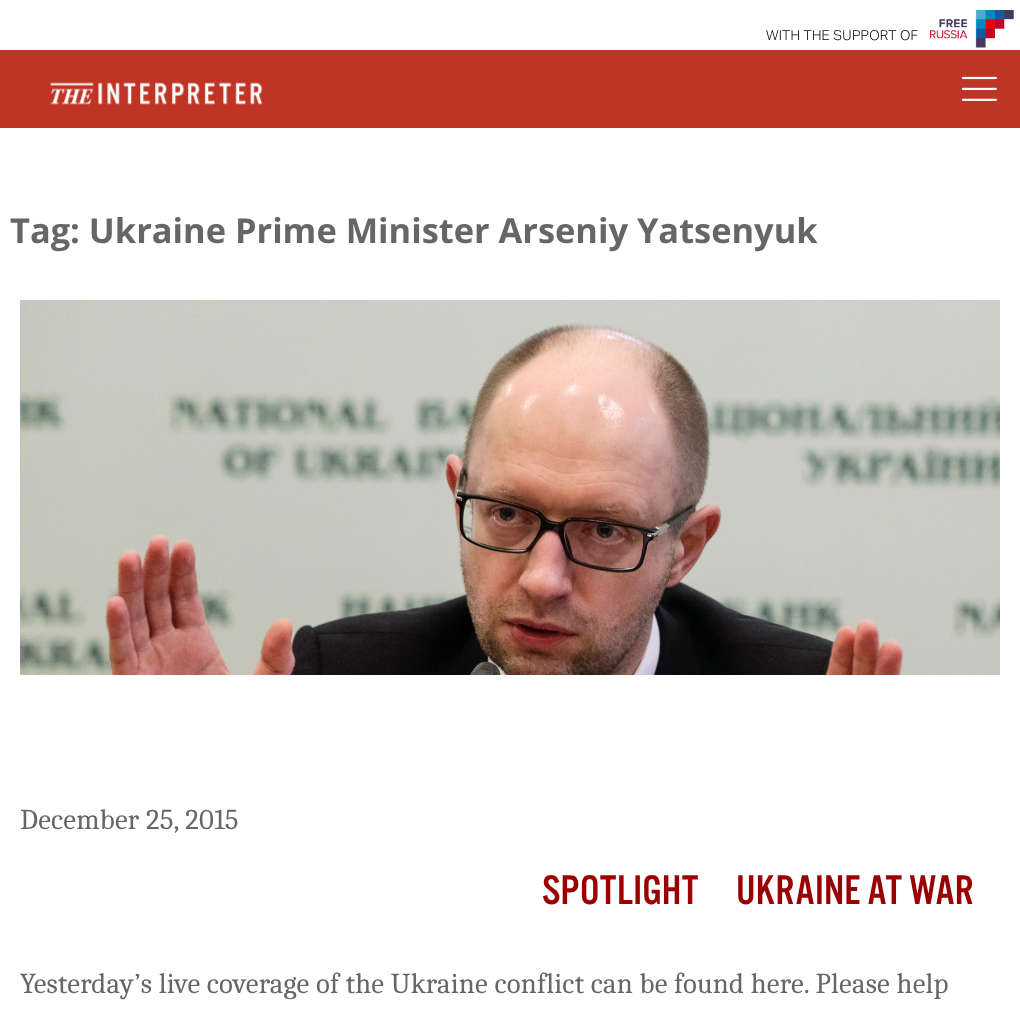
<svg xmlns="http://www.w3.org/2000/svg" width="1020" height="1012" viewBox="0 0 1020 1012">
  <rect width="100%" height="100%" fill="#fff"/>
  <image x="930" y="10" width="84" height="38" href="img/1.png"/>
  <path d="M0 50h1020v78H0z" fill="#bf3525"/>
  <image x="50" y="82" width="213" height="23" href="img/2.png"/>
  <image x="961" y="76" width="36" height="25" href="img/3.png"/>
  <image x="20" y="300" width="980" height="375" href="img/4.png"/>
  <text x="766" y="40" font-family="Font" font-size="13.75" font-weight="300" letter-spacing="0.25" fill="#000">WITH THE SUPPORT OF</text>
  <text x="10" y="243" font-family="Open Sans" font-size="34.4" font-weight="bold" fill="#666">Tag: Ukraine Prime Minister Arseniy Yatsenyuk</text>
  <text x="20" y="829" font-family="Caladea" font-size="28.75" letter-spacing="0.2" fill="#666">December 25, 2015</text>
  <g font-family="'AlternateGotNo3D'" font-size="43" letter-spacing="0.2" fill="#900">
    <text x="542" y="904">SPOTLIGHT</text>
    <text x="736" y="904">UKRAINE AT WAR</text>
  </g>
  <text x="20" y="993" font-family="Caladea" font-size="28.75" letter-spacing="0.2" fill="#666">Yesterday’s live coverage of the Ukraine conflict can be found here. Please help</text>
</svg>
